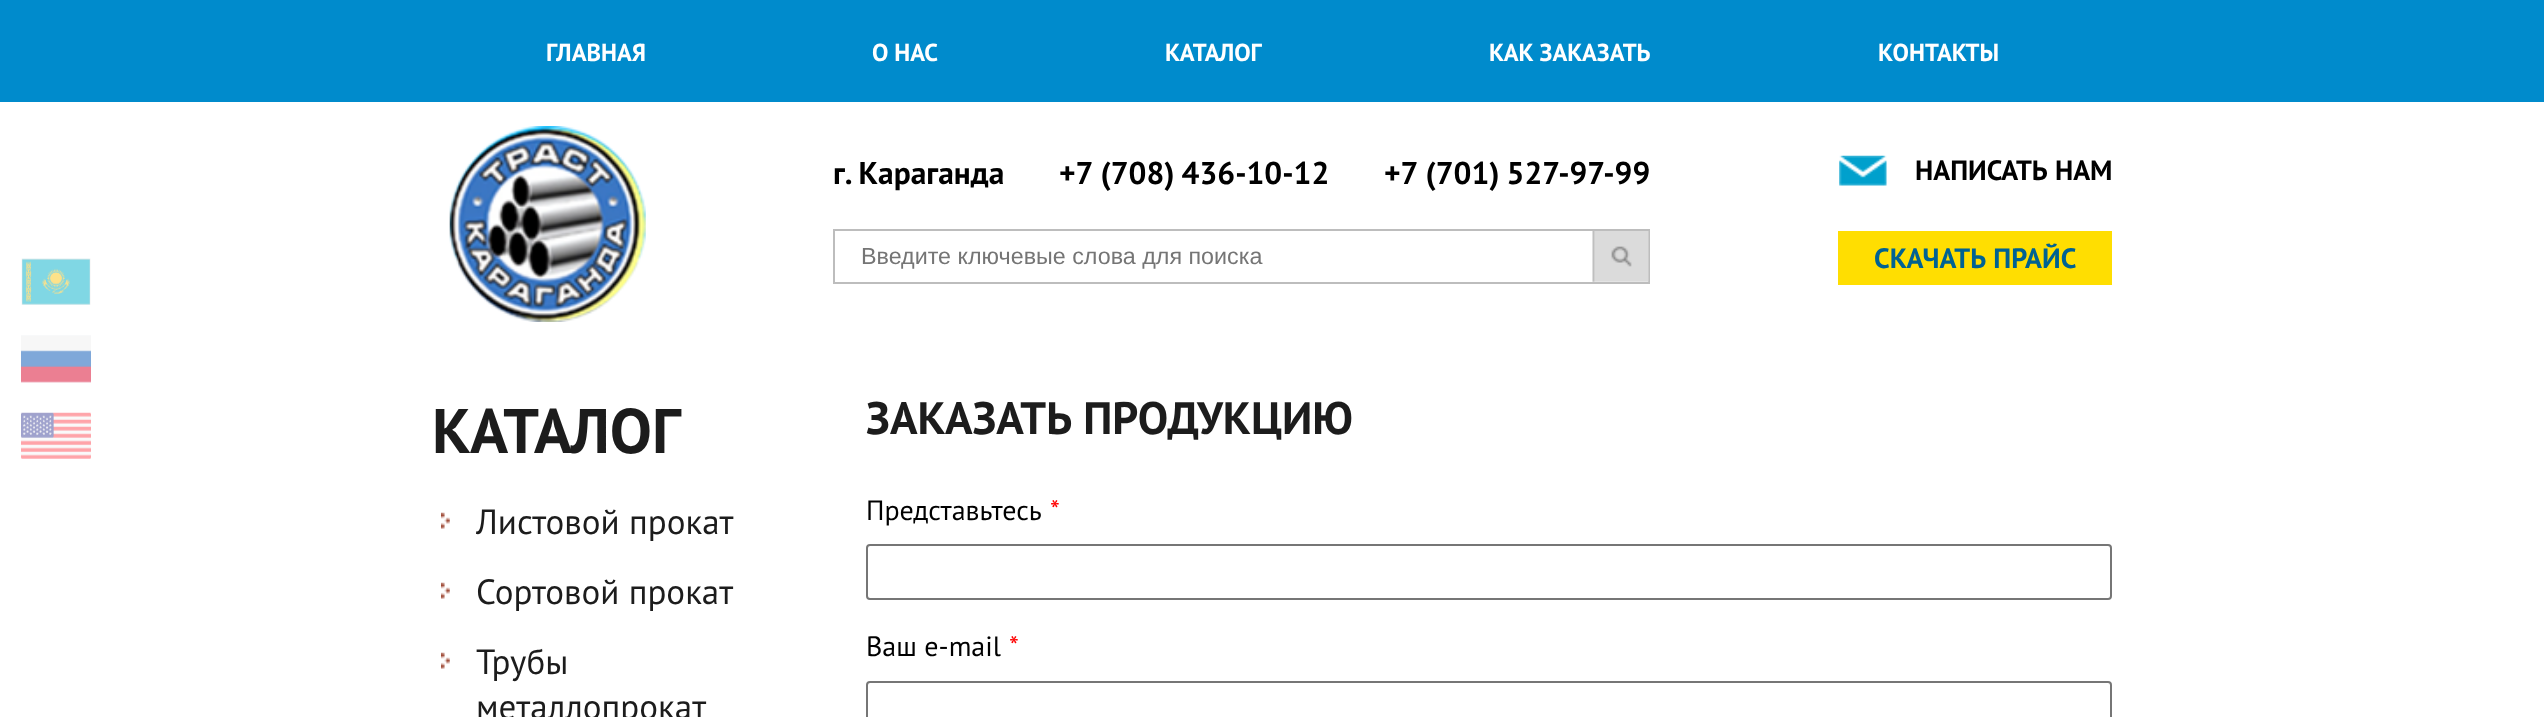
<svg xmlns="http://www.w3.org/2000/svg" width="2544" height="717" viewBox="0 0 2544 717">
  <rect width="100%" height="100%" fill="#fff"/>
  <image x="21" y="258" width="70" height="47" href="img/1.png"/>
  <image x="21" y="335" width="70" height="48" href="img/2.png"/>
  <image x="21" y="412" width="70" height="47" href="img/3.png"/>
  <path d="M0 0h2544v102H0z" fill="#008bcc"/>
  <image x="449" y="126" width="197" height="196" href="img/4.png"/>
  <path d="M834 230h815v53H834z" fill="none" stroke="#bdbdbd" stroke-width="2"/>
  <image x="1592" y="231" width="57" height="51" href="img/5.png"/>
  <image x="1839" y="155" width="48" height="31" href="img/6.png"/>
  <path d="M1838 231h274v54H1838z" fill="#ffde01"/>
  <image x="441" y="512" width="9" height="17" href="img/7.png"/>
  <image x="441" y="582" width="9" height="17" href="img/7.png"/>
  <image x="441" y="652" width="9" height="17" href="img/7.png"/>
  <rect x="867" y="545" width="1244" height="54" rx="3" fill="none" stroke="#767676" stroke-width="2"/>
  <rect x="867" y="682" width="1244" height="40" rx="3" fill="none" stroke="#767676" stroke-width="2"/>
  <g font-family="PT Sans" font-size="24.5" font-weight="bold" fill="#fff">
    <text x="546" y="61">ГЛАВНАЯ</text>
    <text x="872" y="61">О НАС</text>
    <text x="1165" y="61">КАТАЛОГ</text>
    <text x="1489" y="61">КАК ЗАКАЗАТЬ</text>
    <text x="1878" y="61">КОНТАКТЫ</text>
  </g>
  <g font-family="PT Sans" font-size="31.5" font-weight="bold" fill="#000">
    <text x="833" y="184" word-spacing="-2">г. Караганда</text>
    <text x="1059" y="184" word-spacing="-1">+7 (708) 436-10-12</text>
    <text x="1384" y="184" word-spacing="-1">+7 (701) 527-97-99</text>
  </g>
  <text x="861" y="264" font-family="Liberation Sans" font-size="23.3" fill="#757575">Введите ключевые слова для поиска</text>
  <text x="1915" y="180" word-spacing="1" font-family="PT Sans" font-size="28" font-weight="bold" fill="#000">НАПИСАТЬ НАМ</text>
  <text x="1874" y="268" word-spacing="1" font-family="PT Sans" font-size="28" font-weight="bold" fill="#006292">СКАЧАТЬ ПРАЙС</text>
  <text x="432" y="453" font-family="PT Sans" font-size="63" font-weight="bold" fill="#1c1c1c">КАТАЛОГ</text>
  <g font-family="PT Sans" font-size="35" fill="#1c1c1c">
    <text x="476" y="534">Листовой прокат</text>
    <text x="476" y="604">Сортовой прокат</text>
    <text x="476" y="674">Трубы</text>
    <text x="476" y="719">металлопрокат</text>
  </g>
  <text x="866" y="434" word-spacing="1" font-family="PT Sans" font-size="45.5" font-weight="bold" fill="#1c1c1c">ЗАКАЗАТЬ ПРОДУКЦИЮ</text>
  <text x="866" y="520" font-family="PT Sans" font-size="28" fill="#000">Представьтесь</text>
  <text x="1050" y="520" font-family="PT Sans" font-size="28" fill="#f00">*</text>
  <text x="866" y="656" font-family="PT Sans" font-size="28" fill="#000">Ваш e-mail</text>
  <text x="1009" y="656" font-family="PT Sans" font-size="28" fill="#f00">*</text>
</svg>
